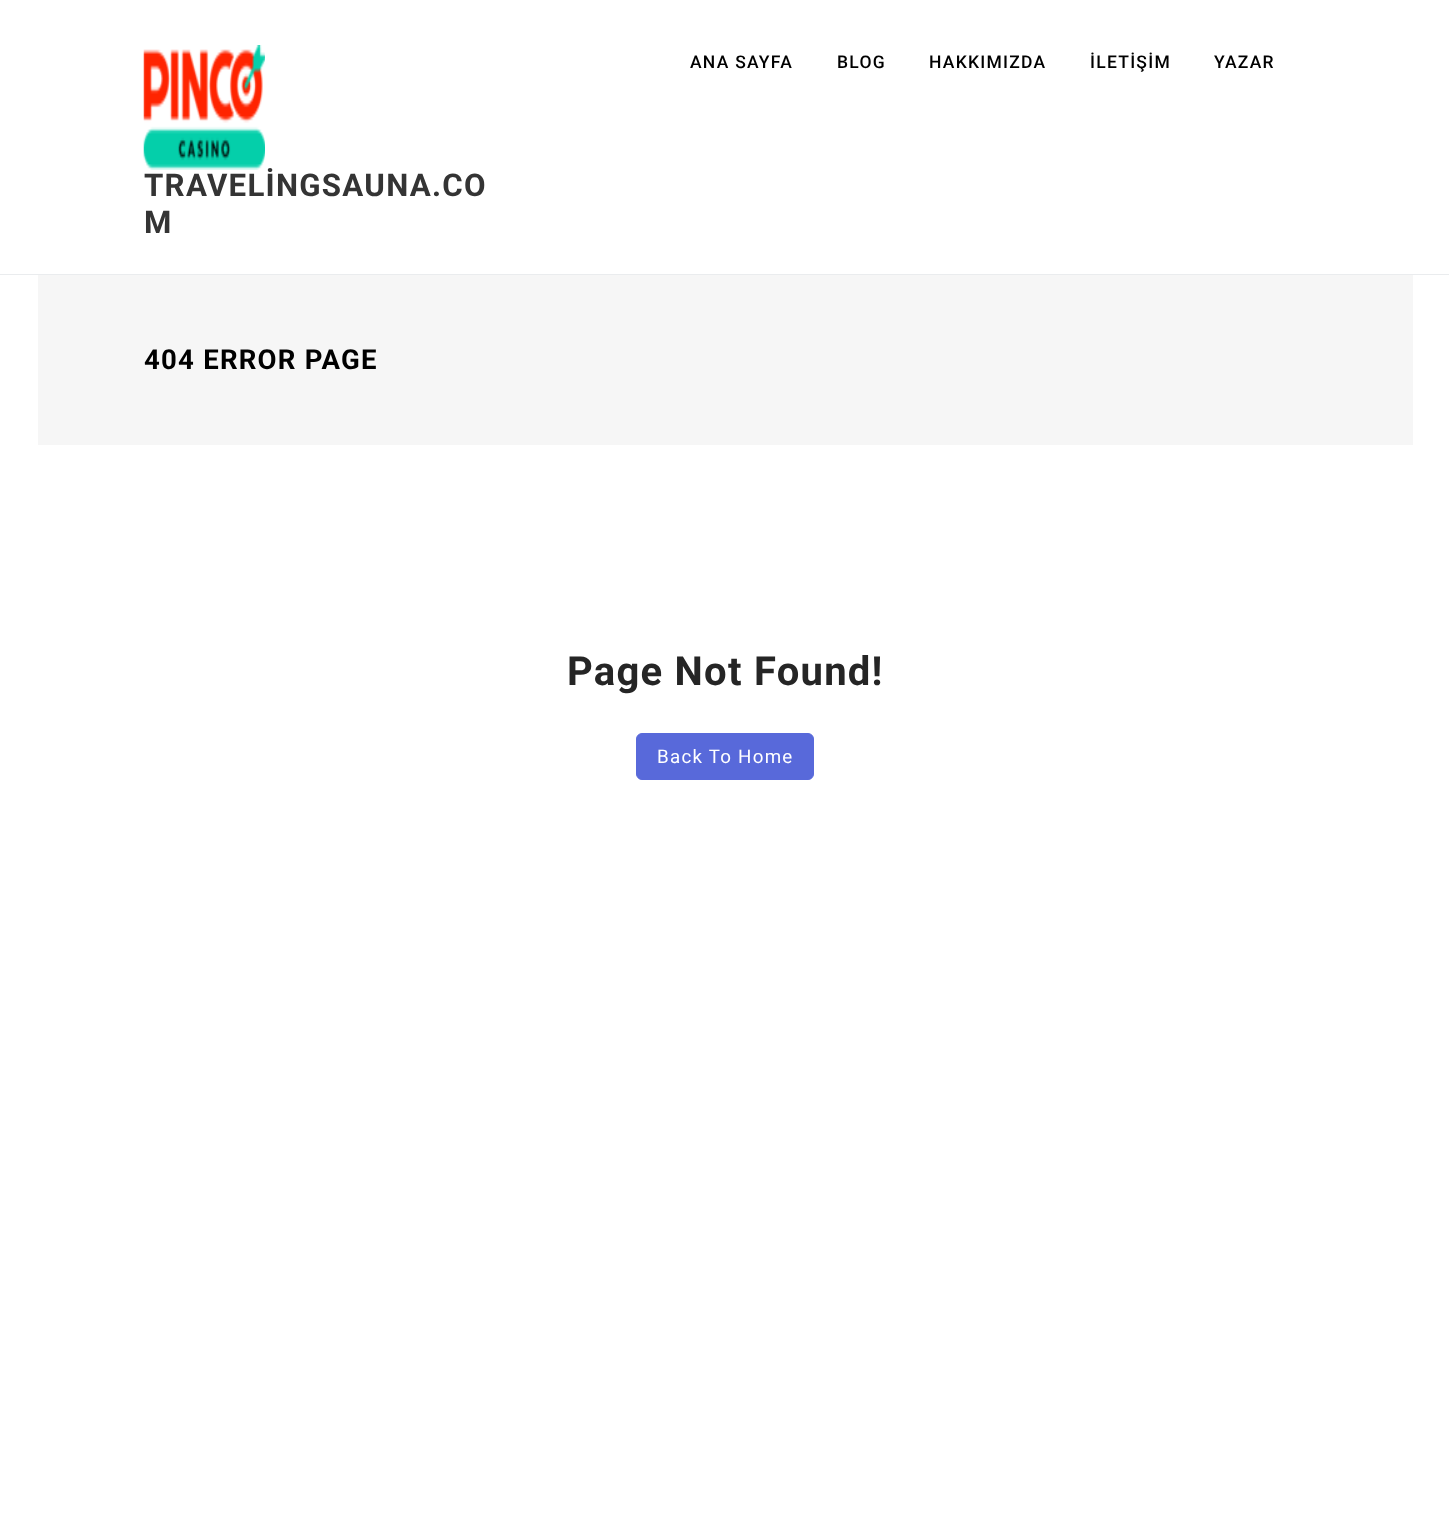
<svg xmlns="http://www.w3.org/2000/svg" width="1449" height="1535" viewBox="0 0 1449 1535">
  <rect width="100%" height="100%" fill="#fff"/>
  <path d="M0 274h1449v1H0z" fill="#eaecee"/>
  <image x="143" y="45" width="122" height="125" href="img/1.png"/>
  <path d="M38 275h1375v170H38z" fill="#f6f6f6"/>
  <rect x="636.5" y="733.5" width="177" height="46" rx="5.5" fill="#5869da" stroke="#5869da"/>
  <g font-family="Roboto" font-size="17.5" font-weight="500" letter-spacing="1.25" fill="#000">
    <text x="690" y="68">ANA SAYFA</text>
    <text x="837" y="68">BLOG</text>
    <text x="929" y="68">HAKKIMIZDA</text>
    <text x="1090" y="68">İLETİŞİM</text>
    <text x="1214" y="68">YAZAR</text>
  </g>
  <g font-family="Roboto" font-size="31.25" font-weight="bold" letter-spacing="1.25" fill="#343434">
    <text x="144" y="196">TRAVELİNGSAUNA.CO</text>
    <text x="144" y="233">M</text>
  </g>
  <text x="144" y="369" font-family="Roboto" font-size="27.5" font-weight="bold" letter-spacing="1.25" fill="#000">404 ERROR PAGE</text>
  <text x="567" y="685" font-family="Roboto" font-size="40" font-weight="bold" letter-spacing="1.25" fill="#252525">Page Not Found!</text>
  <text x="657" y="763" font-family="Roboto" font-size="18.75" letter-spacing="1.25" fill="#fff">Back To Home</text>
</svg>
